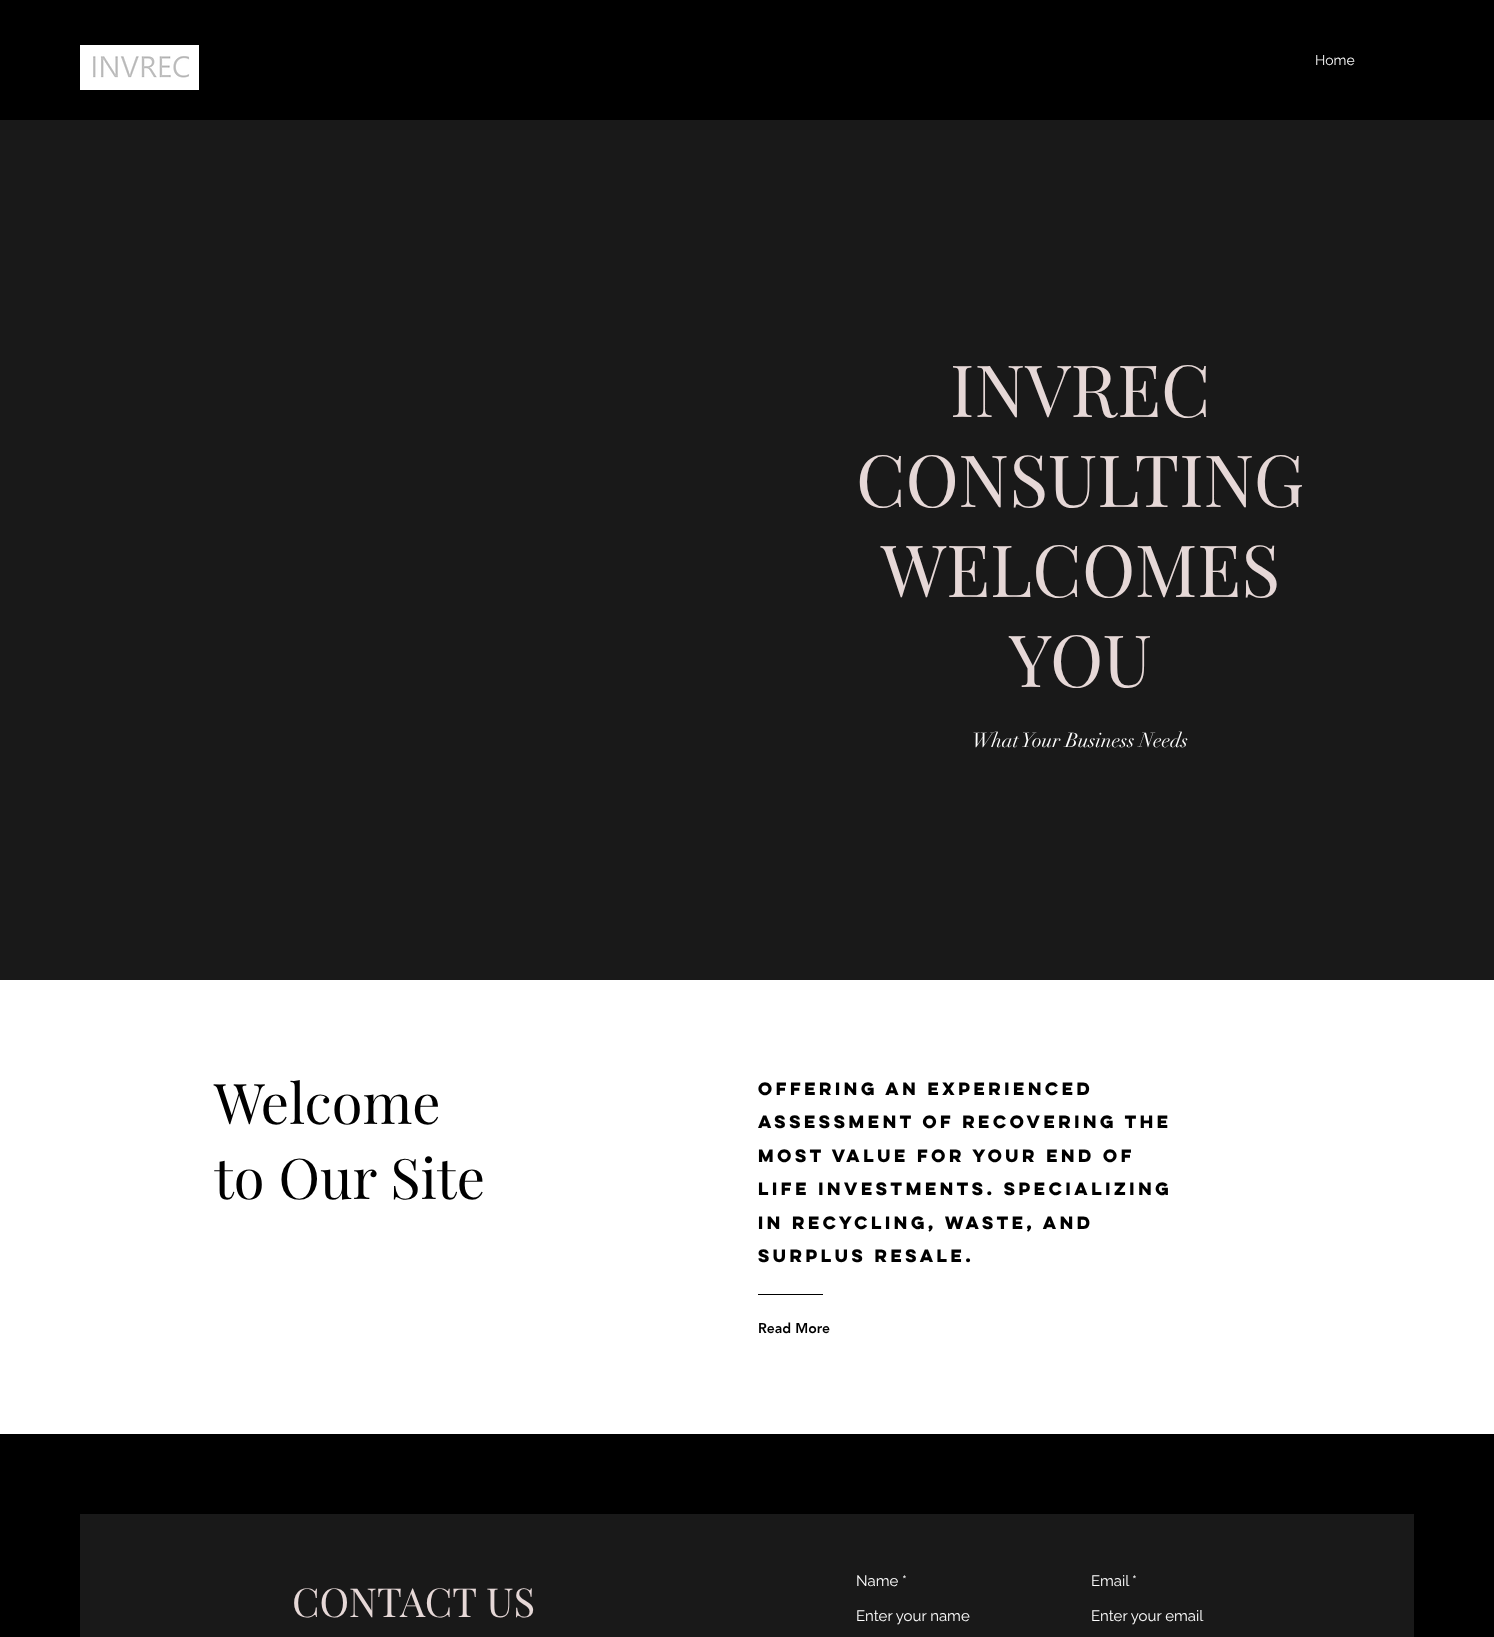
<svg xmlns="http://www.w3.org/2000/svg" width="1494" height="1637" viewBox="0 0 1494 1637">
  <rect width="100%" height="100%" fill="#000"/>
  <image x="80" y="45" width="119" height="45" href="img/1.png"/>
  <path d="M0 120h1494v860H0z" fill="#191919"/>
  <path d="M0 980h1494v454H0z" fill="#fff"/>
  <path d="M758 1294h65v1H758z" fill="#000"/>
  <path d="M80 1514h1334v123H80z" fill="#191919"/>
  <text x="1315" y="65" font-family="Raleway" font-size="14" fill="#f7f7f7">Home</text>
  <g font-family="Playfair Display" font-size="72" fill="#e6d8d7">
    <text x="950" y="417">INVREC</text>
    <text x="856" y="507">CONSULTING</text>
    <text x="881" y="597">WELCOMES</text>
    <text x="1009" y="687">YOU</text>
  </g>
  <text x="972" y="747" font-family="didot" font-size="20" fill="#fff">What Your Business Needs</text>
  <g font-family="Playfair Display" font-size="56" fill="#000">
    <text x="214" y="1124">Welcome</text>
    <text x="214" y="1199">to Our Site</text>
  </g>
  <g font-family="'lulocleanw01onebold'" font-size="16" font-weight="bold" fill="#000">
    <text x="758" y="1095">Offering an experienced</text>
    <text x="758" y="1128">assessment of recovering the</text>
    <text x="758" y="1162">most value for your end of</text>
    <text x="758" y="1195">life investments. Specializing</text>
    <text x="758" y="1229">in Recycling, Waste, and</text>
    <text x="758" y="1262">Surplus resale.</text>
  </g>
  <text x="758" y="1333" font-family="'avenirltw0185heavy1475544'" font-size="14" font-weight="900" fill="#000">Read More</text>
  <text x="292" y="1617" font-family="Playfair Display" font-size="40" fill="#e6d8d7">CONTACT US</text>
  <g font-family="Raleway" font-size="15" fill="#fff">
    <text x="856" y="1586">Name *</text>
    <text x="856" y="1621">Enter your name</text>
    <text x="1091" y="1586">Email</text>
    <text x="1132" y="1586">*</text>
    <text x="1091" y="1621">Enter your email</text>
  </g>
</svg>
